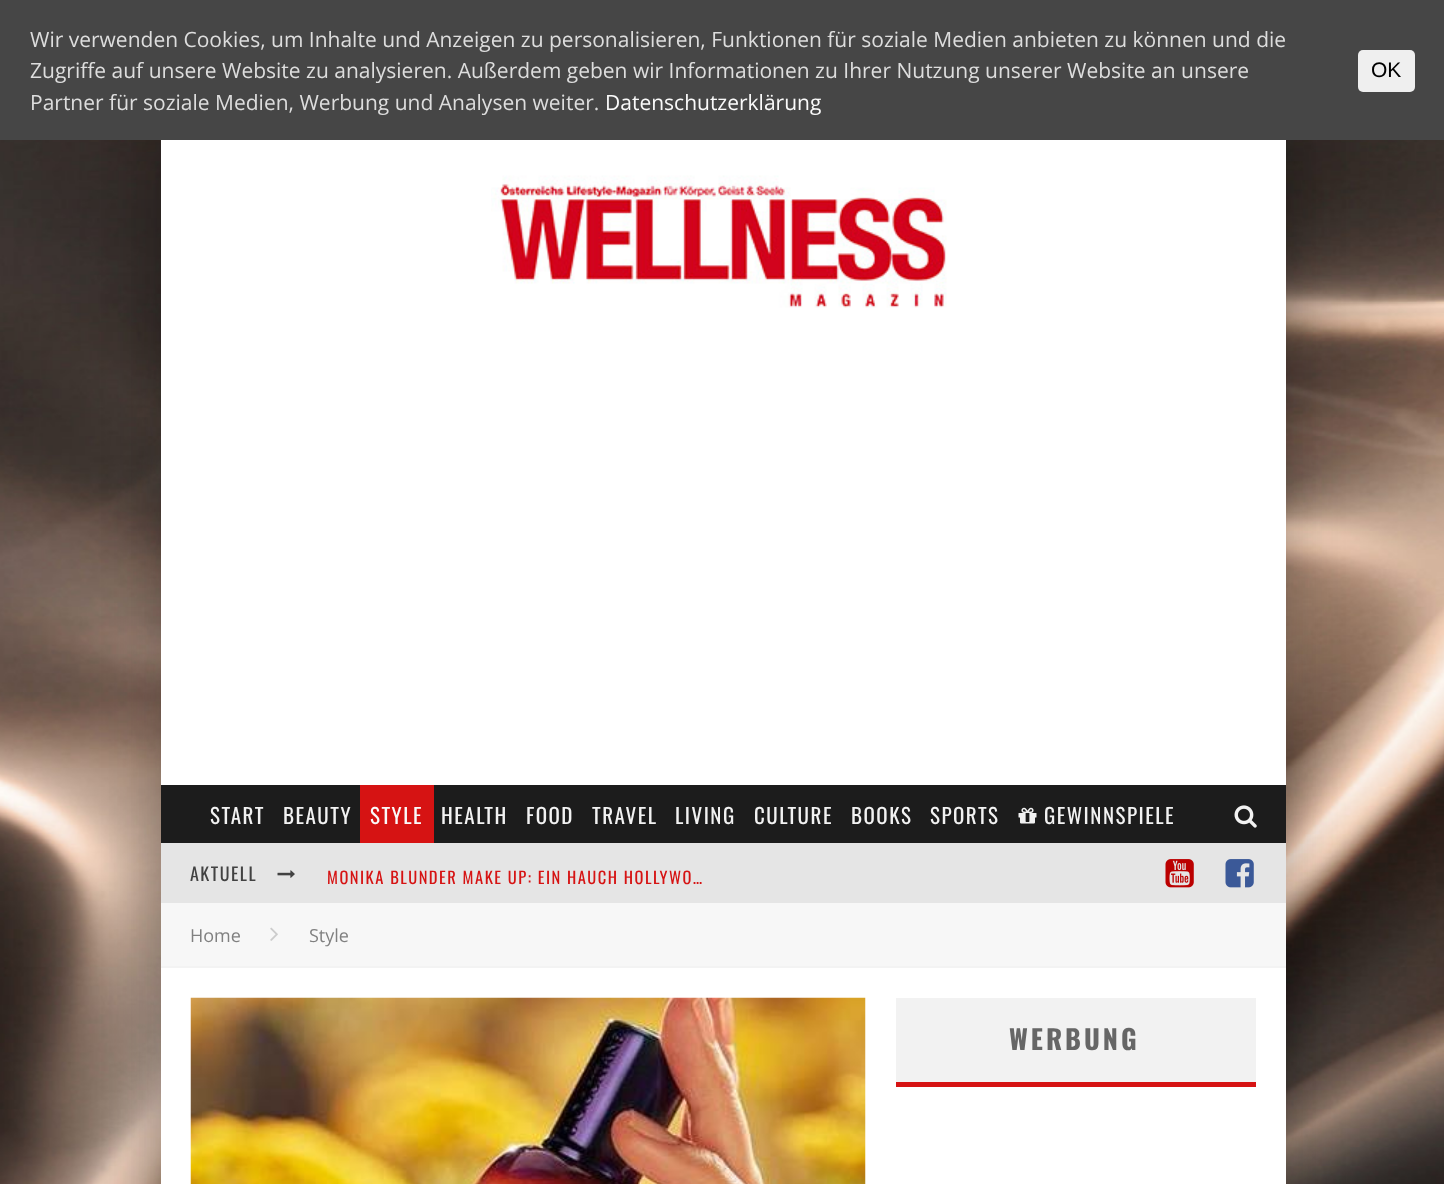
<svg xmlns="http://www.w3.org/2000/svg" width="1444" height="1184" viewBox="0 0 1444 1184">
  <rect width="100%" height="100%" fill="#fff"/>
  <image x="0" y="140" width="1444" height="1044" href="img/1.png"/>
  <path d="M146 140h1125v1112H146z" fill="#00000026" filter="blur(22.5px)"/>
  <path d="M176 140h1125v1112H176z" fill="#00000026" filter="blur(22.5px)"/>
  <path d="M0 0h1444v140H0z" fill="#464646"/>
  <rect x="1358" y="50" width="57" height="42" rx="5" fill="#efefef"/>
  <path d="M161 140h1125v645H161z" fill="#fff"/>
  <image x="491" y="175" width="456" height="133" href="img/2.png"/>
  <path d="M161 785h1125v58H161z" fill="#1c1c1c"/>
  <path d="M360 785h74v58H360z" fill="#d61313"/>
  <image x="1018" y="807" width="19" height="17" href="img/3.png"/>
  <image x="1234" y="805" width="23" height="23" href="img/4.png"/>
  <path d="M161 843h1125v60H161z" fill="#e5e5e5"/>
  <image x="277" y="870" width="18" height="8" href="img/5.png"/>
  <image x="1165" y="859" width="29" height="29" href="img/6.png"/>
  <image x="1225" y="859" width="29" height="29" href="img/7.png"/>
  <path d="M161 903h1125v63H161z" fill="#f7f7f7"/>
  <path d="M161 966h1125v2H161z" fill="#f3f3f3"/>
  <image x="270" y="927" width="8" height="14" href="img/8.png"/>
  <path d="M161 968h1125v216H161z" fill="#fff"/>
  <image x="190" y="997" width="676" height="187" href="img/9.png"/>
  <path d="M896 998h360v84H896z" fill="#f2f2f2"/>
  <path d="M896 1082h360v5H896z" fill="#d61313"/>
  <g font-family="Open Sans" font-size="21" fill="#ddd">
    <text x="30" y="47">Wir verwenden Cookies, um Inhalte und Anzeigen zu personalisieren, Funktionen für soziale Medien anbieten zu können und die</text>
    <text x="30" y="78">Zugriffe auf unsere Website zu analysieren. Außerdem geben wir Informationen zu Ihrer Nutzung unserer Website an unsere</text>
    <text x="30" y="110">Partner für soziale Medien, Werbung und Analysen weiter.</text>
  </g>
  <text x="605" y="110" font-family="Open Sans" font-size="21" fill="#fafafa">Datenschutzerklärung</text>
  <text x="1371" y="77" font-family="Liberation Sans" font-size="21" fill="#000">OK</text>
  <g font-family="Oswald" font-size="21" letter-spacing="1.5" fill="#f2f2f2">
    <text x="210" y="824">START</text>
    <text x="283" y="824">BEAUTY</text>
  </g>
  <text x="370" y="824" font-family="Oswald" font-size="21" letter-spacing="1.5" fill="#fafafa">STYLE</text>
  <g font-family="Oswald" font-size="21" letter-spacing="1.5" fill="#f2f2f2">
    <text x="441" y="824">HEALTH</text>
    <text x="526" y="824">FOOD</text>
    <text x="592" y="824">TRAVEL</text>
    <text x="675" y="824">LIVING</text>
    <text x="754" y="824">CULTURE</text>
    <text x="851" y="824">BOOKS</text>
    <text x="930" y="824">SPORTS</text>
    <text x="1044" y="824">GEWINNSPIELE</text>
  </g>
  <text x="190" y="881" font-family="Oswald" font-size="18" letter-spacing="1.5" fill="#424242">AKTUELL</text>
  <text x="327" y="884" font-family="Oswald" font-size="16.5" letter-spacing="1.5" fill="#d61313">MONIKA BLUNDER MAKE UP: EIN HAUCH HOLLYWO…</text>
  <g font-family="Open Sans" font-size="18" fill="#808080">
    <text x="190" y="942">Home</text>
    <text x="309" y="942">Style</text>
  </g>
  <text x="1009" y="1050" font-family="Oswald" font-size="27" font-weight="bold" letter-spacing="3" fill="#666">WERBUNG</text>
</svg>
